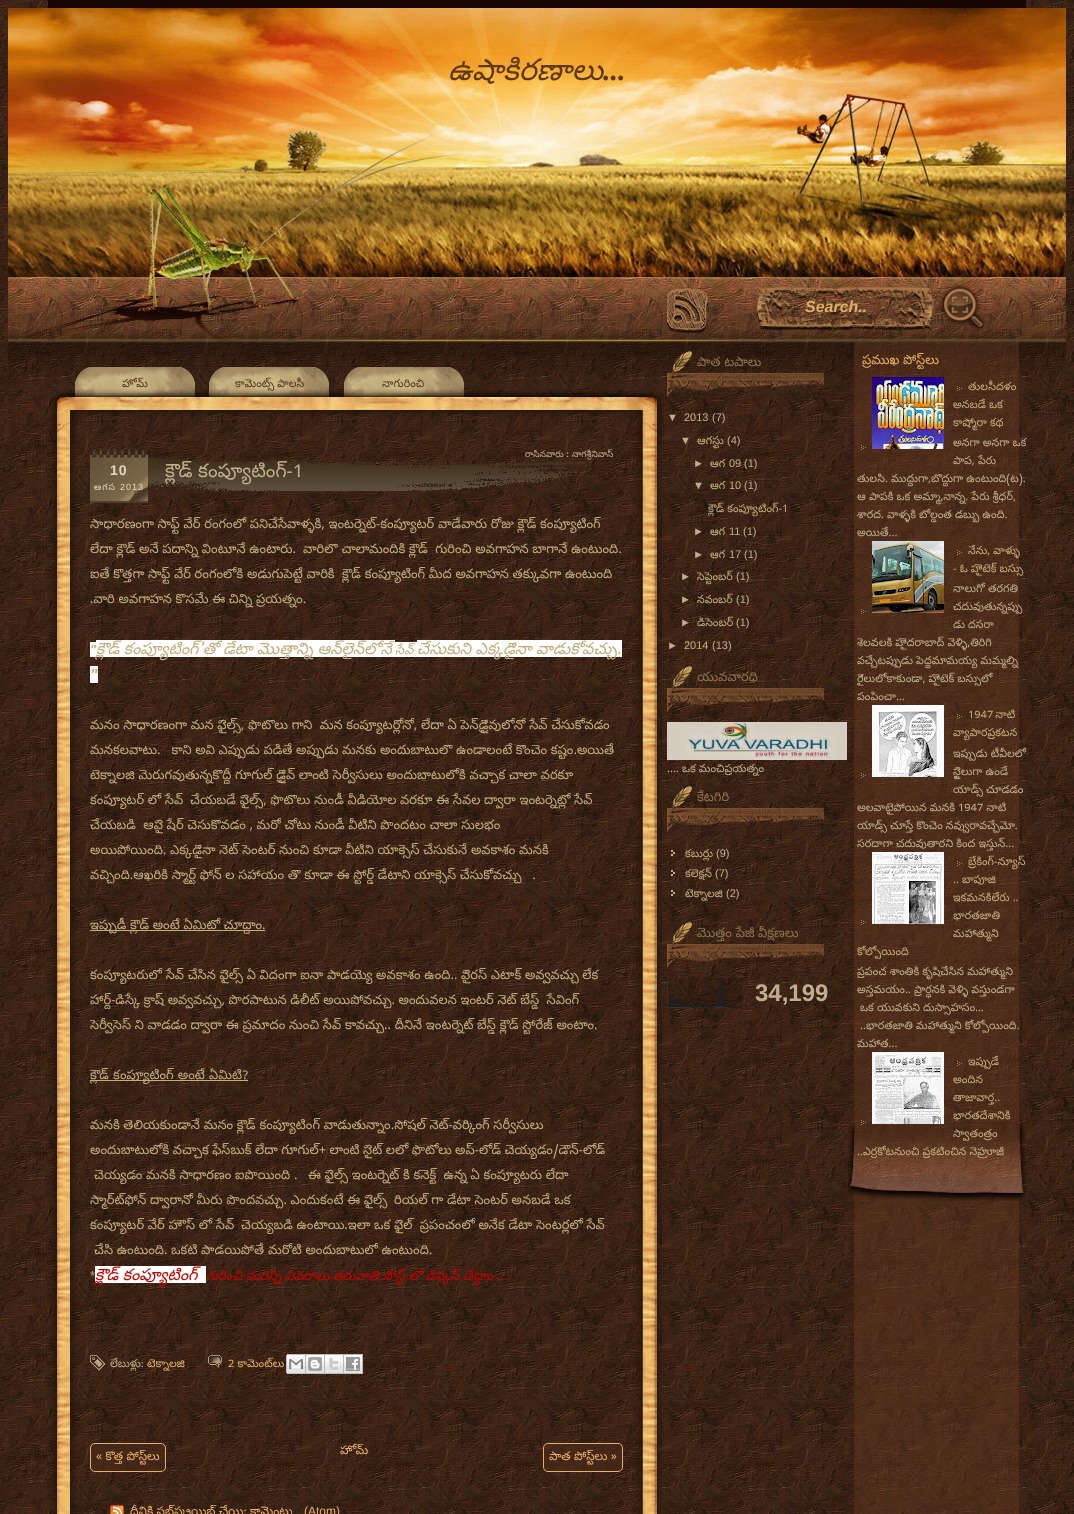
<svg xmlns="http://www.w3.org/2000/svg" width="1074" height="1514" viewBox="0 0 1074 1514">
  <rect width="100%" height="100%" fill="#fff"/>
  <image x="0" y="0" width="1074" height="1514" href="img/1.png"/>
  <image x="8" y="8" width="1058" height="404" href="img/2.png"/>
  <image x="47" y="397" width="980" height="1117" href="img/3.png"/>
  <image x="47" y="8" width="980" height="334" href="img/4.png"/>
  <image x="667" y="288" width="41" height="45" href="img/5.png"/>
  <image x="754" y="284" width="233" height="48" href="img/6.png"/>
  <image x="50" y="397" width="614" height="1117" href="img/7.png"/>
  <image x="47" y="342" width="620" height="55" href="img/8.png"/>
  <image x="75" y="367" width="120" height="30" href="img/9.png"/>
  <image x="209" y="367" width="120" height="30" href="img/9.png"/>
  <image x="344" y="367" width="120" height="30" href="img/9.png"/>
  <image x="667" y="342" width="360" height="70" href="img/10.png"/>
  <image x="667" y="351" width="157" height="46" href="img/11.png"/>
  <image x="667" y="666" width="157" height="46" href="img/12.png"/>
  <image x="667" y="722" width="180" height="38" href="img/13.png"/>
  <image x="667" y="786" width="157" height="46" href="img/14.png"/>
  <image x="671" y="850" width="4" height="6" href="img/15.png"/>
  <image x="671" y="870" width="4" height="6" href="img/16.png"/>
  <image x="671" y="890" width="4" height="6" href="img/17.png"/>
  <image x="667" y="922" width="157" height="46" href="img/18.png"/>
  <image x="667" y="978" width="75" height="30" href="img/19.png"/>
  <image x="848" y="1122" width="178" height="79" href="img/20.png"/>
  <image x="848" y="1122" width="178" height="79" href="img/21.png"/>
  <image x="861" y="445" width="5" height="5" href="img/22.png"/>
  <image x="872" y="377" width="72" height="72" href="img/23.png"/>
  <image x="957" y="386" width="5" height="5" href="img/24.png"/>
  <image x="861" y="609" width="5" height="5" href="img/25.png"/>
  <image x="872" y="541" width="72" height="72" href="img/26.png"/>
  <image x="957" y="550" width="5" height="5" href="img/27.png"/>
  <image x="861" y="773" width="5" height="5" href="img/28.png"/>
  <image x="872" y="705" width="72" height="72" href="img/29.png"/>
  <image x="957" y="714" width="5" height="5" href="img/30.png"/>
  <image x="861" y="920" width="5" height="5" href="img/31.png"/>
  <image x="872" y="852" width="72" height="72" href="img/32.png"/>
  <image x="957" y="861" width="5" height="5" href="img/33.png"/>
  <image x="861" y="1120" width="5" height="5" href="img/34.png"/>
  <image x="872" y="1052" width="72" height="72" href="img/35.png"/>
  <image x="957" y="1061" width="5" height="5" href="img/36.png"/>
  <image x="51" y="397" width="613" height="48" href="img/37.png"/>
  <image x="148" y="457" width="441" height="34" href="img/38.png"/>
  <path d="M90 642h6v15H90z" fill="#fff"/>
  <path d="M96 640h299v17H96z" fill="#fff"/>
  <path d="M395 642h22v15H395z" fill="#fff"/>
  <path d="M417 640h205v17H417z" fill="#fff"/>
  <path d="M90 666h8v17H90z" fill="#fff"/>
  <path d="M90 930h175v1H90z" fill="#c2ae7d"/>
  <path d="M90 1080h158v1H90z" fill="#c2ae7d"/>
  <path d="M95 1266h111v17H95z" fill="#fff"/>
  <image x="90" y="1355" width="16" height="16" href="img/39.png"/>
  <image x="208" y="1355" width="14" height="13" href="img/40.png"/>
  <image x="286" y="1354" width="20" height="20" href="img/41.png"/>
  <image x="306" y="1354" width="19" height="20" href="img/42.png"/>
  <image x="325" y="1354" width="19" height="20" href="img/43.png"/>
  <image x="344" y="1354" width="19" height="20" href="img/44.png"/>
  <image x="90" y="449" width="58" height="54" href="img/45.png"/>
  <image x="90" y="1444" width="76" height="28" href="img/46.png"/>
  <rect x="90.5" y="1443.5" width="75" height="28" rx="4.5" fill="none" stroke="#e7b064"/>
  <image x="543" y="1444" width="80" height="28" href="img/47.png"/>
  <rect x="543.5" y="1443.5" width="79" height="28" rx="4.5" fill="none" stroke="#e7b064"/>
  <image x="110" y="1505" width="14" height="9" href="img/48.png"/>
  <text x="448" y="80" font-family="Noto Sans Telugu" font-size="30" font-style="italic" fill="#603813">ఉషాకిరణాలు</text>
  <text x="603" y="80" font-family="Liberation Serif" font-size="30" font-weight="bold" font-style="italic" fill="#603813">...</text>
  <text x="805" y="312" font-family="Liberation Sans" font-size="16" font-weight="bold" font-style="italic" fill="#ddae63">Search..</text>
  <g font-family="Noto Sans Telugu" font-size="11" fill="#56321f">
    <text x="122" y="387">హోమ్</text>
    <text x="235" y="387">కామెంట్స్ పాలసీ</text>
    <text x="382" y="387">నాగురించి</text>
  </g>
  <text x="697" y="366" font-family="Noto Sans Telugu" font-size="13" fill="#8d744e">పాత టపాలు</text>
  <text x="667" y="421" font-family="Liberation Sans" font-size="11" fill="#c0ae8e">▼</text>
  <text x="684" y="421" font-family="Liberation Sans" font-size="11" fill="#c2ae7d">2013</text>
  <g font-family="Liberation Sans" font-size="11" fill="#c0ae8e">
    <text x="712" y="421">(7)</text>
    <text x="680" y="444">▼</text>
  </g>
  <text x="697" y="444" font-family="Noto Sans Telugu" font-size="11" fill="#c2ae7d">ఆగస్టు</text>
  <g font-family="Liberation Sans" font-size="11" fill="#c0ae8e">
    <text x="727" y="444">(4)</text>
    <text x="693" y="467">►</text>
  </g>
  <text x="710" y="467" font-family="Noto Sans Telugu" font-size="11" fill="#c2ae7d">ఆగ</text>
  <text x="729" y="467" font-family="Liberation Sans" font-size="11" fill="#c2ae7d">09</text>
  <g font-family="Liberation Sans" font-size="11" fill="#c0ae8e">
    <text x="744" y="467">(1)</text>
    <text x="693" y="489">▼</text>
  </g>
  <text x="710" y="489" font-family="Noto Sans Telugu" font-size="11" fill="#c2ae7d">ఆగ</text>
  <text x="729" y="489" font-family="Liberation Sans" font-size="11" fill="#c2ae7d">10</text>
  <text x="744" y="489" font-family="Liberation Sans" font-size="11" fill="#c0ae8e">(1)</text>
  <text x="708" y="512" font-family="Noto Sans Telugu" font-size="11" fill="#c2ae7d">క్లౌడ్ కంప్యూటింగ్-1</text>
  <text x="693" y="535" font-family="Liberation Sans" font-size="11" fill="#c0ae8e">►</text>
  <text x="710" y="535" font-family="Noto Sans Telugu" font-size="11" fill="#c2ae7d">ఆగ</text>
  <text x="729" y="535" font-family="Liberation Sans" font-size="11" fill="#c2ae7d">11</text>
  <g font-family="Liberation Sans" font-size="11" fill="#c0ae8e">
    <text x="743" y="535">(1)</text>
    <text x="693" y="558">►</text>
  </g>
  <text x="710" y="558" font-family="Noto Sans Telugu" font-size="11" fill="#c2ae7d">ఆగ</text>
  <text x="729" y="558" font-family="Liberation Sans" font-size="11" fill="#c2ae7d">17</text>
  <g font-family="Liberation Sans" font-size="11" fill="#c0ae8e">
    <text x="744" y="558">(1)</text>
    <text x="680" y="580">►</text>
  </g>
  <text x="697" y="580" font-family="Noto Sans Telugu" font-size="11" fill="#c2ae7d">సెప్టెంబర్</text>
  <g font-family="Liberation Sans" font-size="11" fill="#c0ae8e">
    <text x="736" y="580">(1)</text>
    <text x="680" y="603">►</text>
  </g>
  <text x="697" y="603" font-family="Noto Sans Telugu" font-size="11" fill="#c2ae7d">నవంబర్</text>
  <g font-family="Liberation Sans" font-size="11" fill="#c0ae8e">
    <text x="736" y="603">(1)</text>
    <text x="680" y="626">►</text>
  </g>
  <text x="697" y="626" font-family="Noto Sans Telugu" font-size="11" fill="#c2ae7d">డిసెంబర్</text>
  <g font-family="Liberation Sans" font-size="11" fill="#c0ae8e">
    <text x="736" y="626">(1)</text>
    <text x="667" y="649">►</text>
  </g>
  <text x="684" y="649" font-family="Liberation Sans" font-size="11" fill="#c2ae7d">2014</text>
  <text x="712" y="649" font-family="Liberation Sans" font-size="11" fill="#c0ae8e">(13)</text>
  <text x="697" y="681" font-family="Noto Sans Telugu" font-size="13" fill="#8d744e">యువవారధి</text>
  <text x="667" y="772" font-family="Noto Sans Telugu" font-size="11" fill="#c0ae8e">.... ఒక మంచిప్రయత్నం</text>
  <text x="697" y="801" font-family="Noto Sans Telugu" font-size="13" fill="#8d744e">కేటగిరి</text>
  <text x="685" y="857" font-family="Noto Sans Telugu" font-size="11" fill="#c2ae7d">కబుర్లు</text>
  <text x="716" y="857" font-family="Liberation Sans" font-size="11" fill="#c0ae8e">(9)</text>
  <text x="685" y="877" font-family="Noto Sans Telugu" font-size="11" fill="#c2ae7d">కలెక్షన్</text>
  <text x="715" y="877" font-family="Liberation Sans" font-size="11" fill="#c0ae8e">(7)</text>
  <text x="685" y="897" font-family="Noto Sans Telugu" font-size="11" fill="#c2ae7d">టెక్నాలజి</text>
  <text x="726" y="897" font-family="Liberation Sans" font-size="11" fill="#c0ae8e">(2)</text>
  <text x="697" y="937" font-family="Noto Sans Telugu" font-size="13" fill="#8d744e">మొత్తం పేజీ వీక్షణలు</text>
  <text x="755" y="1001" font-family="Liberation Sans" font-size="24" font-weight="bold" fill="#c0ae8e">34,199</text>
  <text x="862" y="364" font-family="Noto Sans Telugu" font-size="13" fill="#e7b064">ప్రముఖ పోస్ట్‌లు</text>
  <g font-family="Noto Sans Telugu" font-size="11" fill="#c2ae7d">
    <text x="968" y="390">తులసీదళం</text>
    <text x="953" y="408">అనబడే ఒక</text>
    <text x="953" y="426">కాష్మోరా కథ</text>
  </g>
  <g font-family="Noto Sans Telugu" font-size="11" fill="#c0ae8e">
    <text x="953" y="446">అనగా అనగా ఒక</text>
    <text x="953" y="464">పాప, పేరు</text>
    <text x="857" y="482">తులసి. ముద్దుగా,బొద్దుగా ఉంటుంది(ట).</text>
    <text x="857" y="500">ఆ పాపకి ఒక అమ్మా,నాన్న. పేరు శ్రీధర్,</text>
    <text x="857" y="518">శారద. వాళ్ళకి బోల్డంత డబ్బు ఉంది.</text>
    <text x="857" y="536">అయితే...</text>
  </g>
  <g font-family="Noto Sans Telugu" font-size="11" fill="#c2ae7d">
    <text x="968" y="554">నేను, వాళ్ళు</text>
    <text x="953" y="572">- ఓ హైటెక్ బస్సు</text>
  </g>
  <g font-family="Noto Sans Telugu" font-size="11" fill="#c0ae8e">
    <text x="953" y="592">నాలుగో తరగతి</text>
    <text x="953" y="610">చదువుతున్నప్పు</text>
    <text x="953" y="628">డు దసరా</text>
    <text x="857" y="646">శెలవలకి హైదరాబాద్ వెళ్ళి,తిరిగి</text>
    <text x="857" y="664">వచ్చేటప్పుడు పెద్దమామయ్య మమ్మల్ని</text>
    <text x="857" y="682">రైలులోకాకుండా, హైటెక్ బస్సులో</text>
    <text x="857" y="700">పంపించా...</text>
  </g>
  <g font-family="Noto Sans Telugu" font-size="11" fill="#c2ae7d">
    <text x="968" y="718" word-spacing="-1">1947 నాటి</text>
    <text x="953" y="736">వ్యాపారప్రకటన</text>
  </g>
  <g font-family="Noto Sans Telugu" font-size="11" fill="#c0ae8e">
    <text x="953" y="757">ఇప్పుడు టీవీలలో</text>
    <text x="953" y="775">స్టైలుగా ఉండే</text>
    <text x="953" y="793">యాడ్స్ చూడడం</text>
    <text x="857" y="811">అలవాటైపోయిన మనకి 1947 నాటి</text>
    <text x="857" y="829">యాడ్స్ చూస్తే కొంచెం నవ్వురావచ్చేమో.</text>
    <text x="857" y="847">సరదాగా చదువుతారని కింద ఇస్తున్...</text>
  </g>
  <g font-family="Noto Sans Telugu" font-size="11" fill="#c2ae7d">
    <text x="968" y="865">బ్రేకింగ్-న్యూస్</text>
    <text x="953" y="883">.. బాపూజి</text>
    <text x="953" y="901">ఇకమనకిలేరు ..</text>
    <text x="953" y="919">భారతజాతి</text>
    <text x="953" y="937">మహాత్ముని</text>
    <text x="857" y="955">కోల్పోయింది</text>
  </g>
  <g font-family="Noto Sans Telugu" font-size="11" fill="#c0ae8e">
    <text x="857" y="975">ప్రపంచ శాంతికి కృషిచేసిన మహాత్ముని</text>
    <text x="857" y="993">అస్తమయం.. ప్రార్ధనకి వెళ్ళి వస్తుండగా</text>
    <text x="860" y="1011">ఒక యువకుని దుస్సాహసం...</text>
    <text x="860" y="1029">..భారతజాతి మహాత్ముని కోల్పోయింది.</text>
    <text x="857" y="1047">మహాత...</text>
  </g>
  <g font-family="Noto Sans Telugu" font-size="11" fill="#c2ae7d">
    <text x="968" y="1065">ఇప్పుడే</text>
    <text x="953" y="1083">అందిన</text>
    <text x="953" y="1101">తాజావార్త..</text>
    <text x="953" y="1119">భారతదేశానికి</text>
    <text x="953" y="1137">స్వాతంత్రం</text>
    <text x="857" y="1155">..ఎర్రకోటనుంచి ప్రకటించిన నెహ్రూజీ</text>
  </g>
  <text x="525" y="457" font-family="Noto Sans Telugu" font-size="9" fill="#c0ae8e">రాసినవారు</text>
  <text x="566" y="457" font-family="Liberation Sans" font-size="9" font-weight="bold" fill="#c0ae8e">:</text>
  <text x="572" y="457" font-family="Noto Sans Telugu" font-size="9" fill="#c0ae8e">నాగశ్రీనివాస్</text>
  <text x="165" y="477" font-family="Noto Sans Telugu" font-size="19" fill="#c0ae8e">క్లౌడ్ కంప్యూటింగ్-1</text>
  <g font-family="Noto Sans Telugu" font-size="13" fill="#c2ae7d">
    <text x="90" y="528">సాధారణంగా సాఫ్ట్ వేర్ రంగంలో పనిచేసేవాళ్ళకి, ఇంటర్నెట్-కంప్యూటర్ వాడేవారు రోజు క్లౌడ్ కంప్యూటింగ్</text>
    <text x="90" y="553">లేదా క్లౌడ్ అనే పదాన్ని వింటూనే ఉంటారు.</text>
    <text x="303" y="553" xml:space="preserve">వారిలొ చాలామందికి క్లౌడ్  గురించి అవగాహన బాగానే ఉంటుంది.</text>
    <text x="90" y="578" xml:space="preserve">ఐతే కొత్తగా సాఫ్ట్ వేర్ రంగంలోకి అడుగుపెట్టే వారికి  క్లౌడ్ కంప్యూటింగ్ మీద అవగాహన తక్కువగా ఉంటుంది</text>
    <text x="90" y="603">.వారి అవగాహన కొసమే ఈ చిన్ని ప్రయత్నం.</text>
  </g>
  <text x="395" y="654" font-family="Noto Sans Telugu" font-size="13" font-style="italic" fill="#c2ae7d">సేవ్</text>
  <text x="417" y="654" font-family="Noto Sans Telugu" font-size="16" font-style="italic" fill="#c2ae7d">చేసుకుని ఎక్కడైనా వాడుకోవచ్చు.</text>
  <text x="90" y="654" font-family="Liberation Sans" font-size="13" font-weight="bold" font-style="italic" fill="#c2ae7d">"</text>
  <text x="96" y="654" font-family="Noto Sans Telugu" font-size="16" font-style="italic" fill="#c2ae7d">క్లౌడ్‌ కంప్యూటింగ్‌'తో డేటా మొత్తాన్ని ఆన్‌లైన్‌లోనే</text>
  <text x="90" y="680" font-family="Liberation Sans" font-size="16" font-weight="bold" font-style="italic" fill="#c2ae7d">"</text>
  <g font-family="Noto Sans Telugu" font-size="13" fill="#c2ae7d">
    <text x="90" y="729" xml:space="preserve">మనం సాధారణంగా మన ఫైల్స్, ఫొటొలు గాని  మన కంప్యూటర్లోనో, లేదా ఏ పెన్‍డ్రైవులోనో సేవ్ చేసుకోవడం</text>
    <text x="90" y="754" xml:space="preserve">మనకలవాటు.   కాని అవి ఎప్పుడు పడితే అప్పుడు మనకు అందుబాటులొ ఉండాలంటే కొంచెం కష్టం.అయితే</text>
    <text x="90" y="779">టెక్నాలజి మెరుగవుతున్నకొద్దీ గూగుల్ డ్రైవ్ లాంటి సెర్వీసులు అందుబాటులోకి వచ్చాక చాలా వరకూ</text>
    <text x="90" y="804">కంప్యూటర్ లో సేవ్</text>
    <text x="190" y="804">చేయబడే ఫైల్స్, ఫొటొలు నుండీ వీడియోల వరకూ ఈ సేవల ద్వారా ఇంటర్నెట్లో సేవ్</text>
    <text x="90" y="829" xml:space="preserve">చేయబడి  ఆపై షేర్ చెసుకొవడం , మరో చోటు నుండీ వీటిని పొందటం చాలా సులభం</text>
    <text x="90" y="854">అయిపోయింది. ఎక్కడైనా నెట్ సెంటర్ నుంచి కూడా వీటిని యాక్సెస్ చేసుకునే అవకాశం మనకి</text>
    <text x="90" y="879" xml:space="preserve">వచ్చింది.ఆఖరికి స్మార్ట్ ఫోన్ ల సహాయం తొ కూడా ఈ స్టోర్డ్ డేటాని యాక్సెస్ చేసుకోవచ్చు   .</text>
    <text x="90" y="929">ఇప్పుడీ క్లౌడ్ అంటే ఏమిటో చూద్దాం.</text>
    <text x="90" y="979">కంప్యూటరులో సేవ్ చేసిన ఫైల్స్ ఏ విదంగా ఐనా పాడయ్యె అవకాశం ఉంది.. వైరస్ ఎటాక్ అవ్వవచ్చు లేక</text>
    <text x="90" y="1004" xml:space="preserve">హార్ద్-డిస్కే క్రాష్ అవ్వవచ్చు, పొరపాటున డిలీట్ అయిపోవచ్చు. అందువలన ఇంటర్ నెట్ బేస్డ్  సేవింగ్</text>
    <text x="90" y="1029">సెర్వీసెస్ ని వాడడం ద్వారా ఈ ప్రమాదం నుంచి సేవ్ కావచ్చు.. దీనినే ఇంటర్నెట్ బేస్డ్ క్లౌడ్ స్టోరేజ్ అంటాం.</text>
    <text x="90" y="1079" word-spacing="0.5">క్లౌడ్ కంప్యూటింగ్ అంటే ఏమిటి?</text>
    <text x="90" y="1129">మనకి తెలియకుండానే మనం క్లౌడ్ కంప్యూటింగ్ వాడుతున్నాం.సోషల్ నెట్-వర్కింగ్ సర్వీసులు</text>
    <text x="90" y="1154" word-spacing="-0.25">అందుబాటులోకి వచ్చాక ఫేస్‍బుక్ లేదా గూగుల్+ లాంటి సైట్ లలో ఫొటోలు అప్-లోడ్ చెయ్యడం/డౌన్-లోడ్</text>
    <text x="94" y="1179">చెయ్యడం మనకి సాధారణం ఐపొయింది .</text>
    <text x="308" y="1179" xml:space="preserve">ఈ ఫైల్స్ ఇంటర్నెట్ కి కనెక్ట్  ఉన్న ఏ కంప్యూటరు లేదా</text>
    <text x="90" y="1204">స్మార్ట్‍ఫోన్ ద్వారానో మీరు పొందవచ్చు. ఎందుకంటే ఈ ఫైల్స్</text>
    <text x="394" y="1204">రియల్ గా డేటా సెంటర్ అనబడే ఒక</text>
    <text x="90" y="1229">కంప్యూటర్ వేర్ హౌస్ లో సేవ్</text>
    <text x="241" y="1229" xml:space="preserve">చెయ్యబడి ఉంటాయి.ఇలా ఒక ఫైల్  ప్రపంచంలో అనేక డేటా సెంటర్లలో సేవ్</text>
    <text x="94" y="1254">చేసి ఉంటుంది. ఒకటి పాడయిపోతే మరోటి అందుబాటులో ఉంటుంది.</text>
  </g>
  <text x="206" y="1280" font-family="Noto Sans Telugu" font-size="13" font-style="italic" fill="#c00">గురించి మరిన్ని వివరాలు తరువాతి పోస్ట్ లో డిస్కస్ చేద్దాం ...</text>
  <text x="90" y="1280" font-family="Liberation Sans" font-size="13" fill="#c2ae7d">*</text>
  <text x="95" y="1280" font-family="Noto Sans Telugu" font-size="16" font-style="italic" fill="#c00">క్లౌడ్‌ కంప్యూటింగ్‌</text>
  <text x="110" y="1367" font-family="Noto Sans Telugu" font-size="11" fill="#c2ae7d">లేబుళ్లు:</text>
  <g font-family="Noto Sans Telugu" font-size="11" fill="#e7b064">
    <text x="147" y="1367">టెక్నాలజి</text>
    <text x="228" y="1367">2 కామెంట్‌లు</text>
  </g>
  <text x="110" y="475" font-family="Liberation Sans" font-size="14" font-weight="bold" letter-spacing="1" fill="#e6d6ba">10</text>
  <text x="94" y="490" font-family="Noto Sans Telugu" font-size="9" letter-spacing="1" fill="#e6d6ba">ఆగస</text>
  <text x="120" y="490" font-family="Liberation Sans" font-size="9" letter-spacing="1" fill="#e6d6ba">2013</text>
  <g font-family="Noto Sans Telugu" font-size="12" fill="#e7b064">
    <text x="96" y="1460">« కొత్త పోస్ట్‌లు</text>
    <text x="340" y="1454">హోమ్</text>
    <text x="549" y="1460">పాత పోస్ట్‌లు »</text>
    <text x="130" y="1515">దీనికి సబ్‌స్క్రయిబ్ చేయి: కామెంట్లు</text>
  </g>
  <text x="304" y="1515" font-family="Liberation Sans" font-size="12" fill="#e7b064">(Atom)</text>
</svg>
